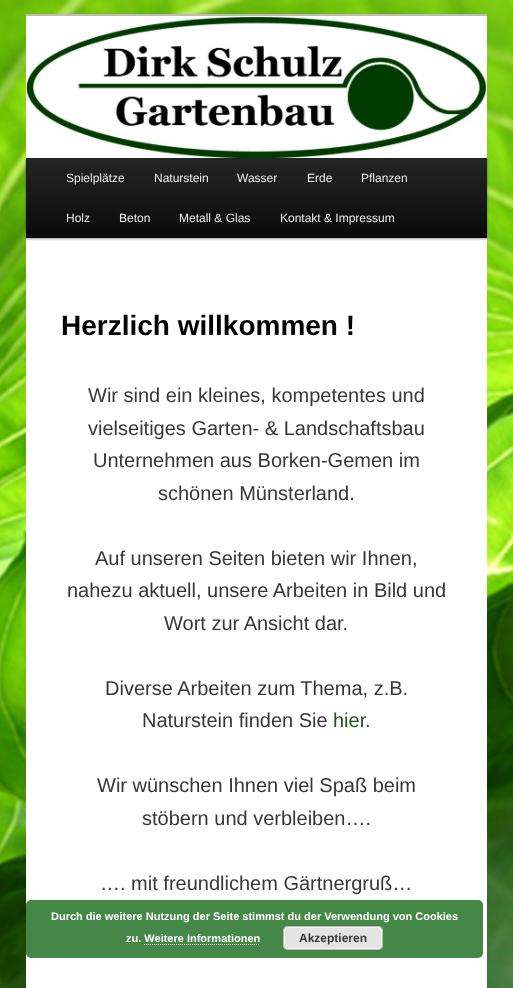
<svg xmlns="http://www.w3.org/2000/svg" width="513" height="988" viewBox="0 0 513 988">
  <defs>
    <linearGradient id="g1" gradientUnits="userSpaceOnUse" x1="257" y1="158" x2="257" y2="238"><stop offset="0" stop-color="#252525"/><stop offset="1" stop-color="#0a0a0a"/></linearGradient>
  </defs>
  <rect width="100%" height="100%" fill="#fff"/>
  <image x="0" y="0" width="513" height="988" href="img/1.png"/>
  <path d="M26 238h461v750H26z" fill="#fff"/>
  <path d="M26 14h461v2H26z" fill="#bbb"/>
  <path d="M26 159h461v80H26z" fill="#00000066" filter="blur(1px)"/>
  <image x="26" y="16" width="461" height="142" href="img/2.png"/>
  <path d="M26 158h461v80H26z" fill="url(#g1)"/>
  <rect x="26" y="900" width="457" height="58" rx="5" fill="#237227d9"/>
  <rect x="283" y="926" width="100" height="24" rx="5" fill="#e3e3e3"/>
  <rect x="284.5" y="927.5" width="97" height="21" rx="3.5" fill="none" stroke="#f6f6f6"/>
  <rect x="283.5" y="926.5" width="99" height="23" rx="4.5" fill="none" stroke="#bbb"/>
  <path d="M144 944.5H260" fill="none" stroke="#fff" stroke-dasharray="1 1"/>
  <g font-family="Liberation Sans" font-size="12" fill="#eee">
    <text x="66" y="182">Spielplätze</text>
    <text x="154" y="182">Naturstein</text>
    <text x="237" y="182">Wasser</text>
    <text x="307" y="182">Erde</text>
    <text x="361" y="182">Pflanzen</text>
    <text x="66" y="222">Holz</text>
    <text x="119" y="222">Beton</text>
    <text x="179" y="222">Metall &amp; Glas</text>
    <text x="280" y="222">Kontakt &amp; Impressum</text>
  </g>
  <text x="61" y="335" font-family="Liberation Sans" font-size="28" font-weight="bold" fill="#000">Herzlich willkommen !</text>
  <g font-family="Liberation Sans" font-size="20" fill="#373737">
    <text x="88" y="402">Wir sind ein kleines, kompetentes und</text>
    <text x="88" y="435">vielseitiges Garten- &amp; Landschaftsbau</text>
    <text x="93" y="467">Unternehmen aus Borken-Gemen im</text>
    <text x="158" y="500">schönen Münsterland.</text>
    <text x="95" y="565">Auf unseren Seiten bieten wir Ihnen,</text>
    <text x="67" y="597">nahezu aktuell, unsere Arbeiten in Bild und</text>
    <text x="164" y="630">Wort zur Ansicht dar.</text>
    <text x="105" y="695">Diverse Arbeiten zum Thema, z.B.</text>
    <text x="142" y="727">Naturstein finden Sie</text>
  </g>
  <text x="333" y="727" font-family="Liberation Sans" font-size="20" fill="#1f511b">hier</text>
  <g font-family="Liberation Sans" font-size="20" fill="#373737">
    <text x="365" y="727">.</text>
    <text x="97" y="792">Wir wünschen Ihnen viel Spaß beim</text>
    <text x="142" y="825">stöbern und verbleiben….</text>
    <text x="100" y="890">…. mit freundlichem Gärtnergruß…</text>
  </g>
  <g font-family="Liberation Sans" font-size="11" font-weight="bold" fill="#fff">
    <text x="51" y="920">Durch die weitere Nutzung der Seite stimmst du der Verwendung von Cookies</text>
    <text x="126" y="942">zu. Weitere Informationen</text>
  </g>
  <text x="299" y="942" font-family="Liberation Sans" font-size="12" font-weight="bold" fill="#373737">Akzeptieren</text>
</svg>
